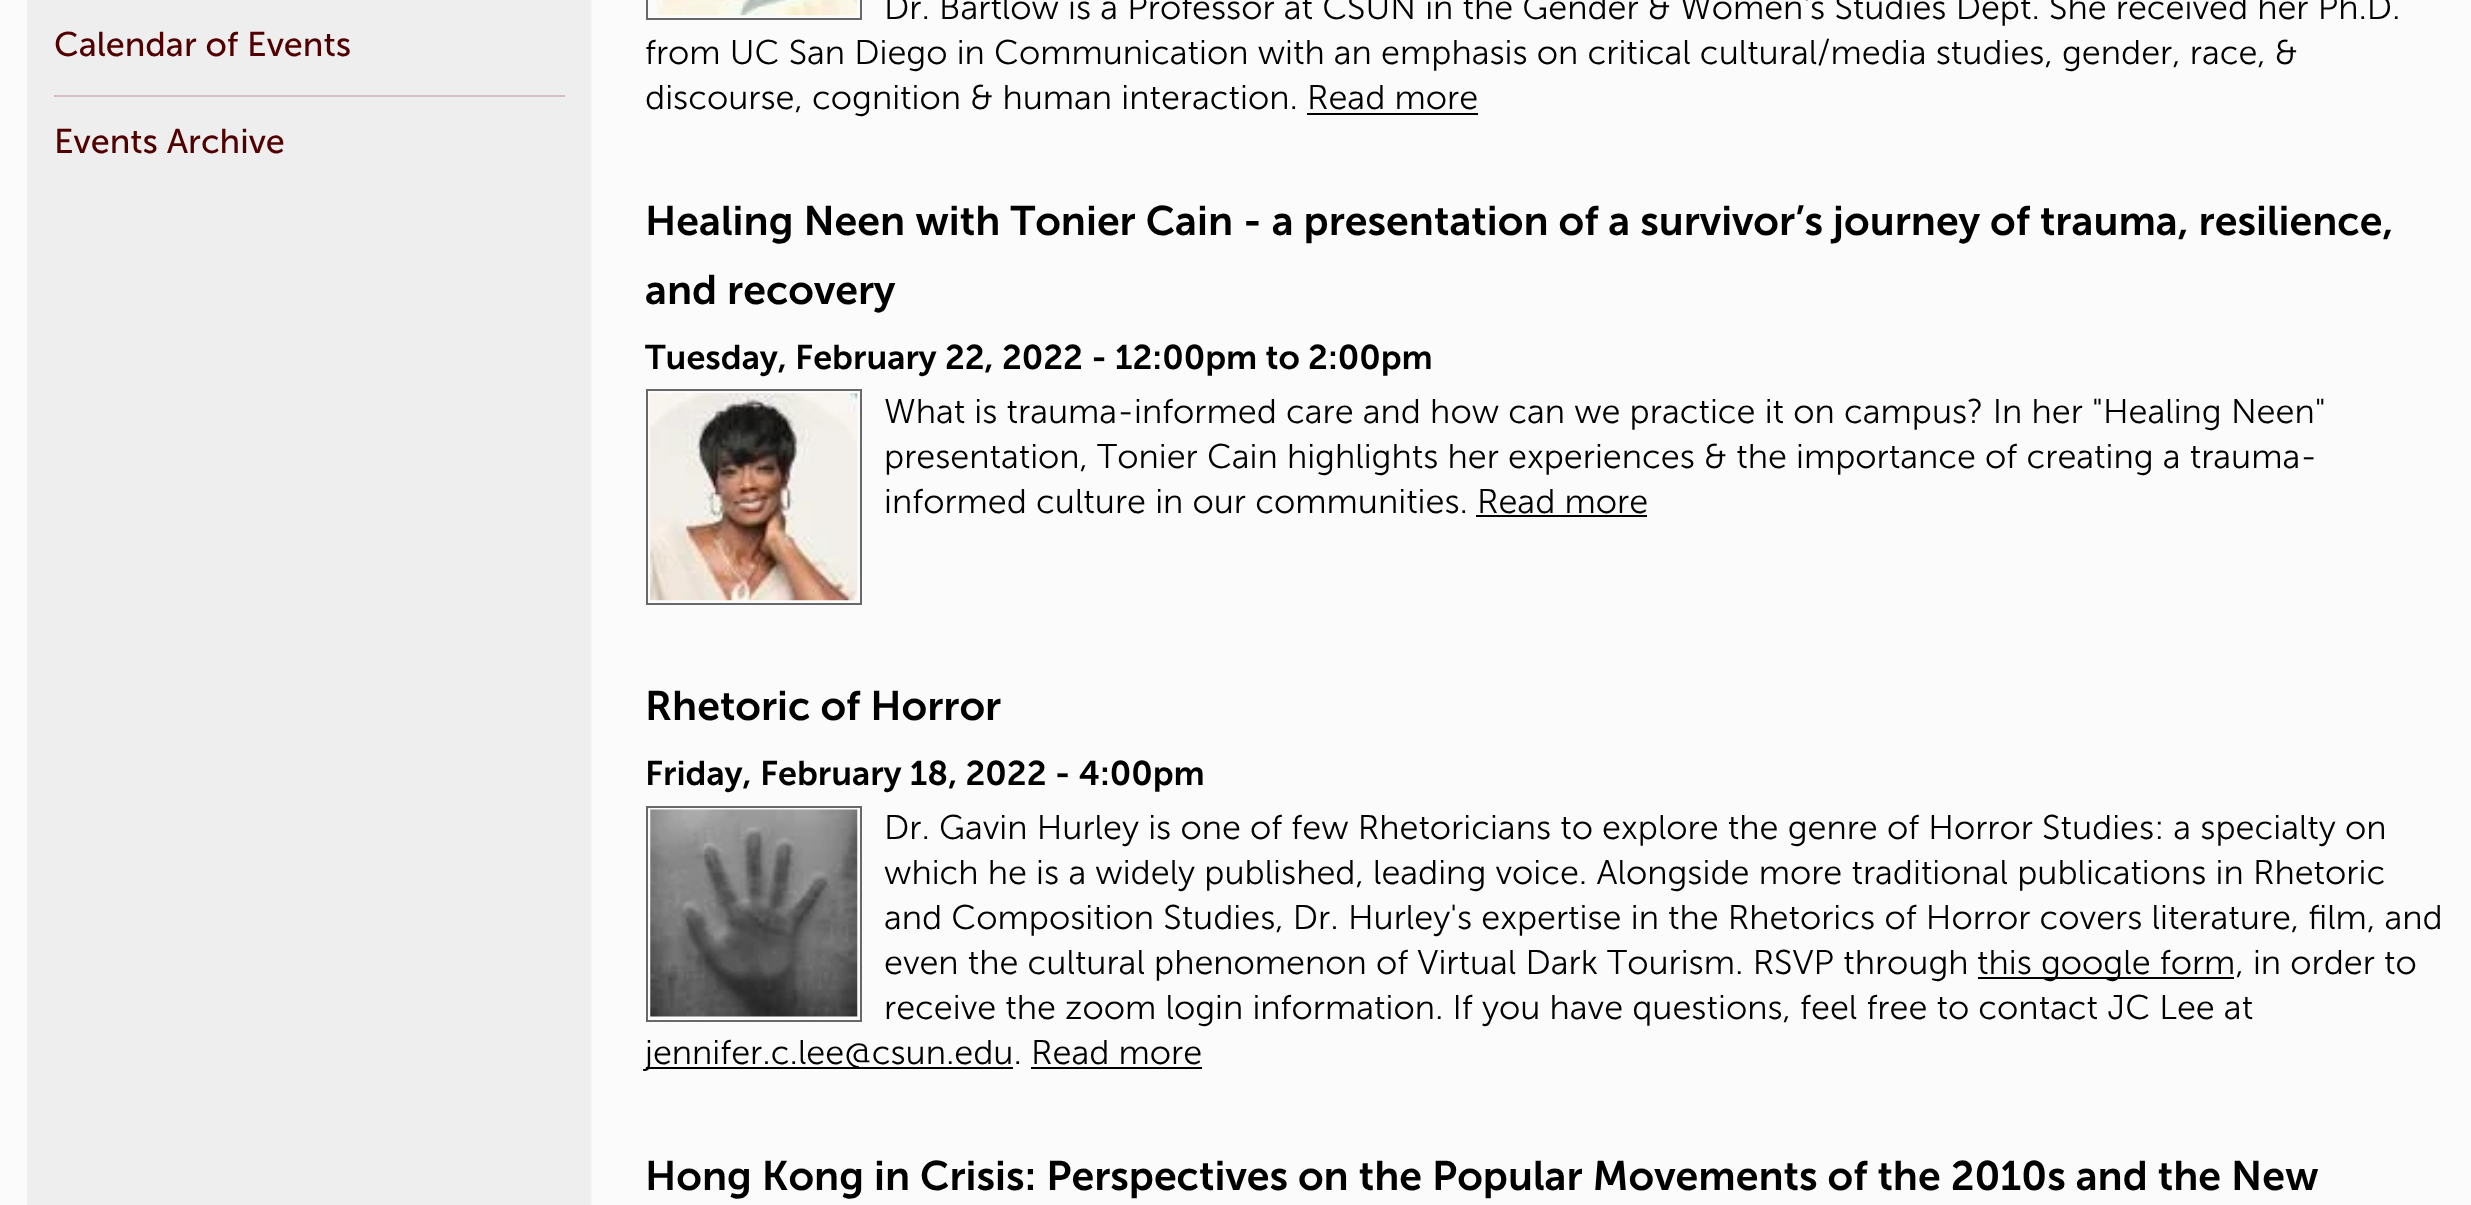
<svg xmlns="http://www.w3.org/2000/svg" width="2471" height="1205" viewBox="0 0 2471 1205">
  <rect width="100%" height="100%" fill="#fbfbfb"/>
  <image x="27" y="0" width="565" height="1205" href="img/1.png"/>
  <path d="M54 95h511v2H54z" fill="#d4c0c0"/>
  <path d="M647 -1h214v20H647z" fill="none" stroke="#686868" stroke-width="2"/>
  <image x="654" y="0" width="204" height="16" href="img/2.png"/>
  <path d="M1307 113h171v2H1307z" fill="#000"/>
  <path d="M647 390h214v214H647z" fill="none" stroke="#686868" stroke-width="2"/>
  <image x="650" y="393" width="208" height="208" href="img/3.png"/>
  <path d="M1476 515h171v2H1476z" fill="#000"/>
  <path d="M647 807h214v214H647z" fill="none" stroke="#686868" stroke-width="2"/>
  <image x="650" y="809" width="208" height="208" href="img/4.png"/>
  <path d="M1978 977h256v2H1978z" fill="#000"/>
  <path d="M646 1067h367v2H646z" fill="#000"/>
  <path d="M1031 1067h171v2H1031z" fill="#000"/>
  <g font-family="Museo Sans" font-size="34.2" fill="#500000">
    <text x="54" y="56">Calendar of Events</text>
    <text x="54" y="153">Events Archive</text>
  </g>
  <g font-family="Museo Sans" font-size="34.2" font-weight="300" fill="#000">
    <text x="884" y="19">Dr. Bartlow is a Professor at CSUN in the Gender &amp; Women's Studies Dept. She received her Ph.D.</text>
    <text x="645" y="64">from UC San Diego in Communication with an emphasis on critical cultural/media studies, gender, race, &amp;</text>
    <text x="645" y="109">discourse, cognition &amp; human interaction.</text>
    <text x="1307" y="109">Read more</text>
  </g>
  <g font-family="Museo Sans" font-size="41.05" font-weight="600" fill="#000">
    <text x="645" y="235">Healing Neen with Tonier Cain - a presentation of a survivor’s journey of trauma, resilience,</text>
    <text x="645" y="304">and recovery</text>
  </g>
  <g font-family="Museo Sans" font-size="34.2" font-weight="600" fill="#000">
    <text x="645" y="369">Tuesday, February 22, 2022 -</text>
    <text x="1115" y="369">12:00pm to 2:00pm</text>
  </g>
  <g font-family="Museo Sans" font-size="34.2" font-weight="300" fill="#000">
    <text x="884" y="423">What is trauma-informed care and how can we practice it on campus? In her "Healing Neen"</text>
    <text x="884" y="468">presentation, Tonier Cain highlights her experiences &amp; the importance of creating a trauma-</text>
    <text x="884" y="513">informed culture in our communities.</text>
    <text x="1477" y="513">Read more</text>
  </g>
  <text x="645" y="720" font-family="Museo Sans" font-size="41.05" font-weight="600" fill="#000">Rhetoric of Horror</text>
  <text x="645" y="785" font-family="Museo Sans" font-size="34.2" font-weight="600" fill="#000">Friday, February 18, 2022 - 4:00pm</text>
  <g font-family="Museo Sans" font-size="34.2" font-weight="300" fill="#000">
    <text x="884" y="839">Dr. Gavin Hurley is one of few Rhetoricians to explore the genre of Horror Studies: a specialty on</text>
    <text x="884" y="884">which he is a widely published, leading voice. Alongside more traditional publications in Rhetoric</text>
    <text x="884" y="929">and Composition Studies, Dr. Hurley's expertise in the Rhetorics of Horror covers literature, film, and</text>
    <text x="884" y="974">even the cultural phenomenon of Virtual Dark Tourism. RSVP through</text>
    <text x="1977" y="974">this google form, in order to</text>
    <text x="884" y="1019">receive the zoom login information. If you have questions, feel free to contact JC Lee at</text>
    <text x="645" y="1064">jennifer.c.lee@csun.edu. Read more</text>
  </g>
  <text x="645" y="1190" font-family="Museo Sans" font-size="41.05" font-weight="600" fill="#000">Hong Kong in Crisis: Perspectives on the Popular Movements of the 2010s and the New</text>
</svg>
